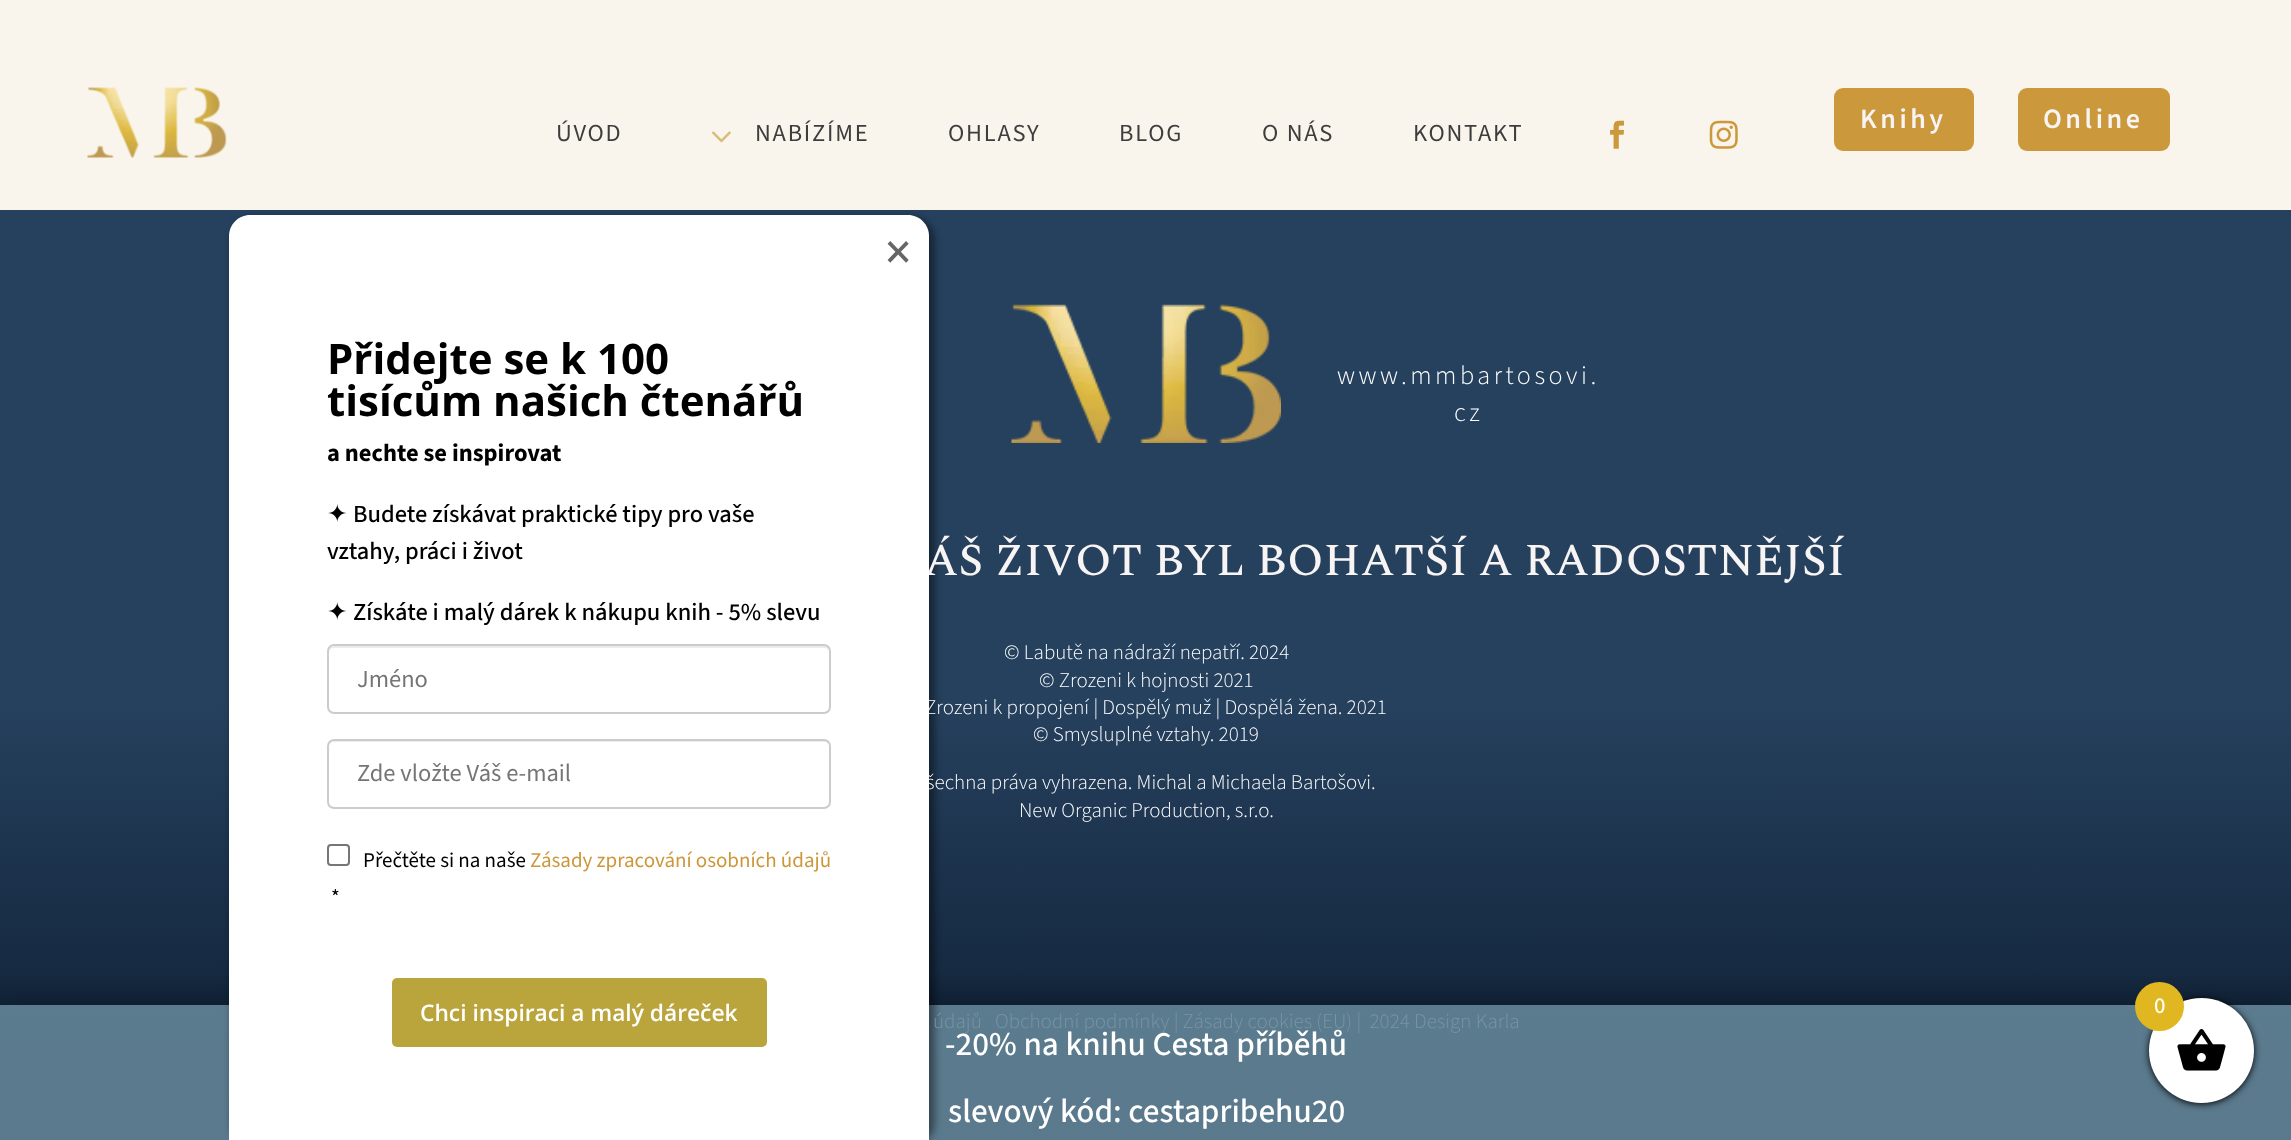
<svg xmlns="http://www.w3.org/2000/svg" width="2291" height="1140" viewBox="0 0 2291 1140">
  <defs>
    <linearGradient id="g1" gradientUnits="userSpaceOnUse" x1="1146" y1="154" x2="1146" y2="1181"><stop offset="0.53" stop-color="#26415e"/><stop offset="0.99" stop-color="#0a192d"/></linearGradient>
    <linearGradient id="g2" gradientUnits="userSpaceOnUse" x1="1146" y1="154" x2="1146" y2="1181"><stop offset="0.53" stop-color="#5d7e92"/><stop offset="0.99" stop-color="#5a798c"/></linearGradient>
    <clipPath id="clip1"><path d="M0 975h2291v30H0z"/></clipPath>
  </defs>
  <rect width="100%" height="100%" fill="#fff"/>
  <path d="M0 0h2291v210H0z" fill="#f9f5ec"/>
  <image x="87" y="87" width="140" height="71" href="img/1.png"/>
  <image x="712" y="131" width="19" height="12" href="img/2.png"/>
  <image x="1610" y="120" width="15" height="29" href="img/3.png"/>
  <image x="1709" y="120" width="29" height="29" href="img/4.png"/>
  <rect x="1834" y="88" width="140" height="63" rx="9" fill="#cb983c"/>
  <rect x="2018" y="88" width="152" height="63" rx="9" fill="#cb983c"/>
  <path d="M0 210h2291v795H0z" fill="url(#g1)"/>
  <path d="M0 1005h2291v135H0z" fill="url(#g2)"/>
  <image x="1011" y="304" width="270" height="139" href="img/5.png"/>
  <g clip-path="url(#clip1)">
    <path d="M-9 999h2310v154H-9z" fill="#0000004d" filter="blur(16px)"/>
  </g>
  <rect x="231" y="217" width="704" height="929" rx="23" fill="#00000069" filter="blur(3.5px)"/>
  <rect x="2149" y="999" width="105" height="105" rx="52.5" fill="#000" filter="blur(3.5px)"/>
  <circle cx="2201.5" cy="1050.5" r="52.5" fill="#fff"/>
  <image x="2177" y="1029" width="49" height="42" href="img/6.png"/>
  <circle cx="2159.5" cy="1006.5" r="24.5" fill="#e0b721"/>
  <g font-family="'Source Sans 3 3'" font-size="24.5" font-weight="200" letter-spacing="1.75" fill="#3d3d3d">
    <text x="556" y="141">ÚVOD</text>
    <text x="755" y="141">NABÍZÍME</text>
    <text x="948" y="141">OHLASY</text>
    <text x="1119" y="141">BLOG</text>
    <text x="1262" y="141">O NÁS</text>
    <text x="1413" y="141">KONTAKT</text>
  </g>
  <g font-family="'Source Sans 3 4'" font-size="28" font-weight="200" letter-spacing="3.5" fill="#f7f4f3">
    <text x="1860" y="128">Knihy</text>
    <text x="2043" y="128">Online</text>
  </g>
  <g font-family="'Source Sans 3'" font-size="26.25" font-weight="200" letter-spacing="3.5" fill="#fff">
    <text x="1337" y="384">www.mmbartosovi.</text>
    <text x="1454" y="421">cz</text>
  </g>
  <text x="924" y="575" font-family="Spectral SC" font-size="45.5" font-weight="500" fill="#f7f4f3">ÁŠ ŽIVOT BYL BOHATŠÍ A RADOSTNĚJŠÍ</text>
  <g font-family="'Source Sans 3'" font-size="21" font-weight="200" fill="#fff">
    <text x="1004" y="659">© Labutě na nádraží nepatří. 2024</text>
    <text x="1039" y="687">© Zrozeni k hojnosti 2021</text>
    <text x="925" y="714">Zrozeni k propojení | Dospělý muž | Dospělá žena. 2021</text>
    <text x="1033" y="741">© Smysluplné vztahy. 2019</text>
    <text x="926" y="789">šechna práva vyhrazena. Michal a Michaela Bartošovi.</text>
    <text x="1019" y="817">New Organic Production, s.r.o.</text>
  </g>
  <g font-family="'Source Sans 3'" font-size="21" font-weight="200" fill="#7795a5">
    <text x="933" y="1028">údajů</text>
    <text x="995" y="1028" xml:space="preserve">Obchodní podmínky | Zásady cookies (EU) |  2024 Design Karla</text>
  </g>
  <g font-family="'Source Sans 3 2'" font-size="33.25" font-weight="200" fill="#fff">
    <text x="945" y="1055">-20% na knihu Cesta příběhů</text>
    <text x="948" y="1122">slevový kód: cestapribehu20</text>
  </g>
  <path d="M250 215H908C919.5 215 929 224.5 929 236V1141H229V236C229 224.5 238.5 215 250 215Z" fill="#fff"/>
  <text x="885" y="269" font-family="'Source Sans 3 2'" font-size="52" font-weight="200" fill="#666">×</text>
  <g font-family="Open Sans" font-size="42" font-weight="bold" fill="#000">
    <text x="327" y="374">Přidejte se k 100</text>
    <text x="327" y="416">tisícům našich čtenářů</text>
  </g>
  <text x="327" y="461" font-family="'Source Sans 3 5'" font-size="24.5" font-weight="200" fill="#000">a nechte se inspirovat</text>
  <text x="327" y="522" font-family="DejaVu Sans" font-size="24.5" fill="#000">✦</text>
  <g font-family="'Source Sans 3 2'" font-size="24.5" font-weight="200" fill="#000">
    <text x="353" y="522">Budete získávat praktické tipy pro vaše</text>
    <text x="327" y="559">vztahy, práci i život</text>
  </g>
  <text x="327" y="620" font-family="DejaVu Sans" font-size="24.5" fill="#000">✦</text>
  <text x="353" y="620" font-family="'Source Sans 3 2'" font-size="24.5" font-weight="200" fill="#000">Získáte i malý dárek k nákupu knih - 5% slevu</text>
  <path d="M334 648H824C827 648 830 650 830 653V651C830 648 828 646 825 646H334C331 646 329 648 329 651V653C329 650 331 648 334 648Z" fill="#ececec"/>
  <rect x="328" y="645" width="502" height="68" rx="6" fill="none" stroke="#ccc" stroke-width="2"/>
  <text x="357" y="687" font-family="'Source Sans 3 3'" font-size="24.5" font-weight="200" fill="#757575">Jméno</text>
  <path d="M334 742H824C827 742 830 744 830 747V745C830 742 828 740 825 740H334C331 740 329 742 329 745V747C329 744 331 742 334 742Z" fill="#ececec"/>
  <rect x="328" y="740" width="502" height="68" rx="6" fill="none" stroke="#ccc" stroke-width="2"/>
  <text x="357" y="781" font-family="'Source Sans 3 3'" font-size="24.5" font-weight="200" fill="#757575">Zde vložte Váš e-mail</text>
  <rect x="328" y="845" width="21" height="20" rx="3" fill="none" stroke="#767676" stroke-width="2"/>
  <text x="363" y="867" font-family="'Source Sans 3 3'" font-size="21" font-weight="200" fill="#000">Přečtěte si na naše</text>
  <text x="530" y="867" font-family="'Source Sans 3 3'" font-size="21" font-weight="200" fill="#cc9739">Zásady zpracování osobních údajů</text>
  <text x="331" y="904" font-family="'Source Sans 3 3'" font-size="21" font-weight="200" fill="#000">*</text>
  <rect x="392" y="978" width="375" height="69" rx="5" fill="#baa53d"/>
  <text x="420" y="1021" font-family="Open Sans" font-size="22.75" font-weight="600" fill="#fff">Chci inspiraci a malý dáreček</text>
  <text x="2154" y="1013" font-family="'Source Sans 3 2'" font-size="22.75" font-weight="200" fill="#fff">0</text>
</svg>
